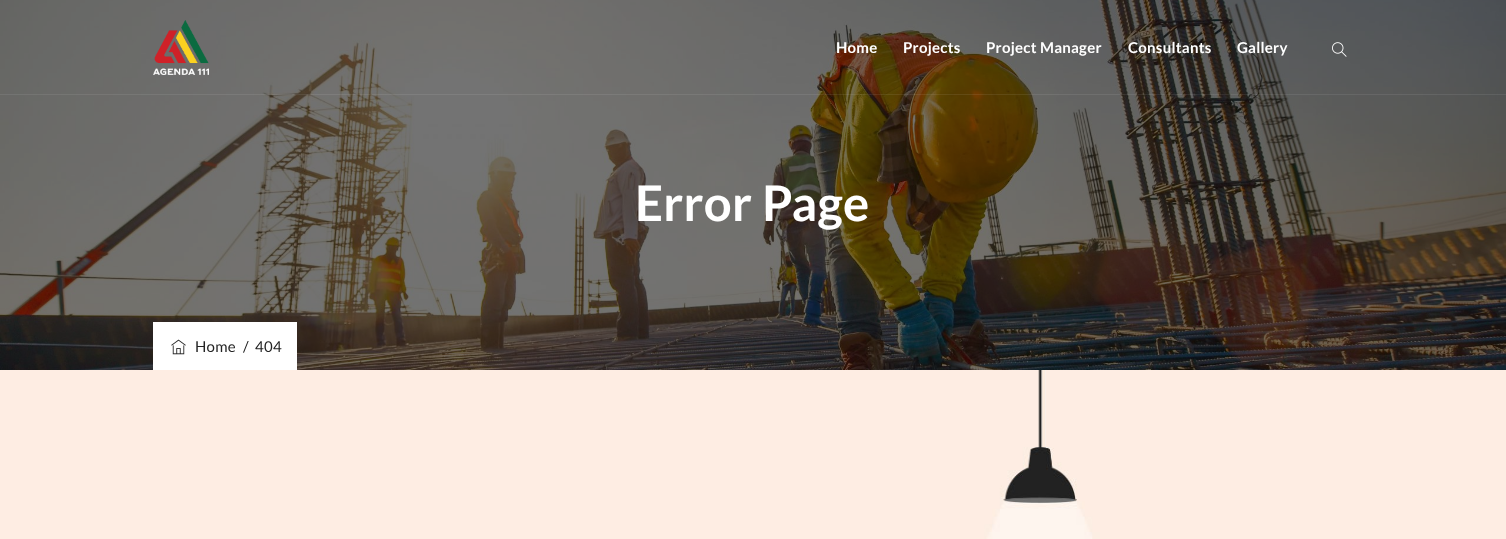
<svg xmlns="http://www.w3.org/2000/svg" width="1506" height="539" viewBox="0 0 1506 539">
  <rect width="100%" height="100%" fill="#fff"/>
  <image x="0" y="0" width="1506" height="370" href="img/3.png"/>
  <image x="153" y="20" width="56" height="55" href="img/1.png"/>
  <image x="1332" y="42" width="15" height="15" href="img/2.png"/>
  <path d="M0 94h1506v1H0z" fill="#ffffff14"/>
  <path d="M153 322h144v48H153z" fill="#fff"/>
  <image x="171" y="339" width="15" height="16" href="img/4.png"/>
  <image x="0" y="370" width="1506" height="169" href="img/5.png"/>
  <g font-family="Lato" font-size="15" font-weight="bold" letter-spacing="0.25" fill="#fff">
    <text x="836" y="53">Home</text>
    <text x="903" y="53">Projects</text>
    <text x="986" y="53">Project Manager</text>
    <text x="1128" y="53">Consultants</text>
    <text x="1237" y="53">Gallery</text>
  </g>
  <text x="635" y="221" font-family="Lato" font-size="49" font-weight="bold" letter-spacing="0.25" fill="#fff">Error Page</text>
  <g font-family="Lato" font-size="15" letter-spacing="0.25" fill="#232323">
    <text x="195" y="352">Home</text>
    <text x="243" y="352">/</text>
    <text x="255" y="352">404</text>
  </g>
</svg>
